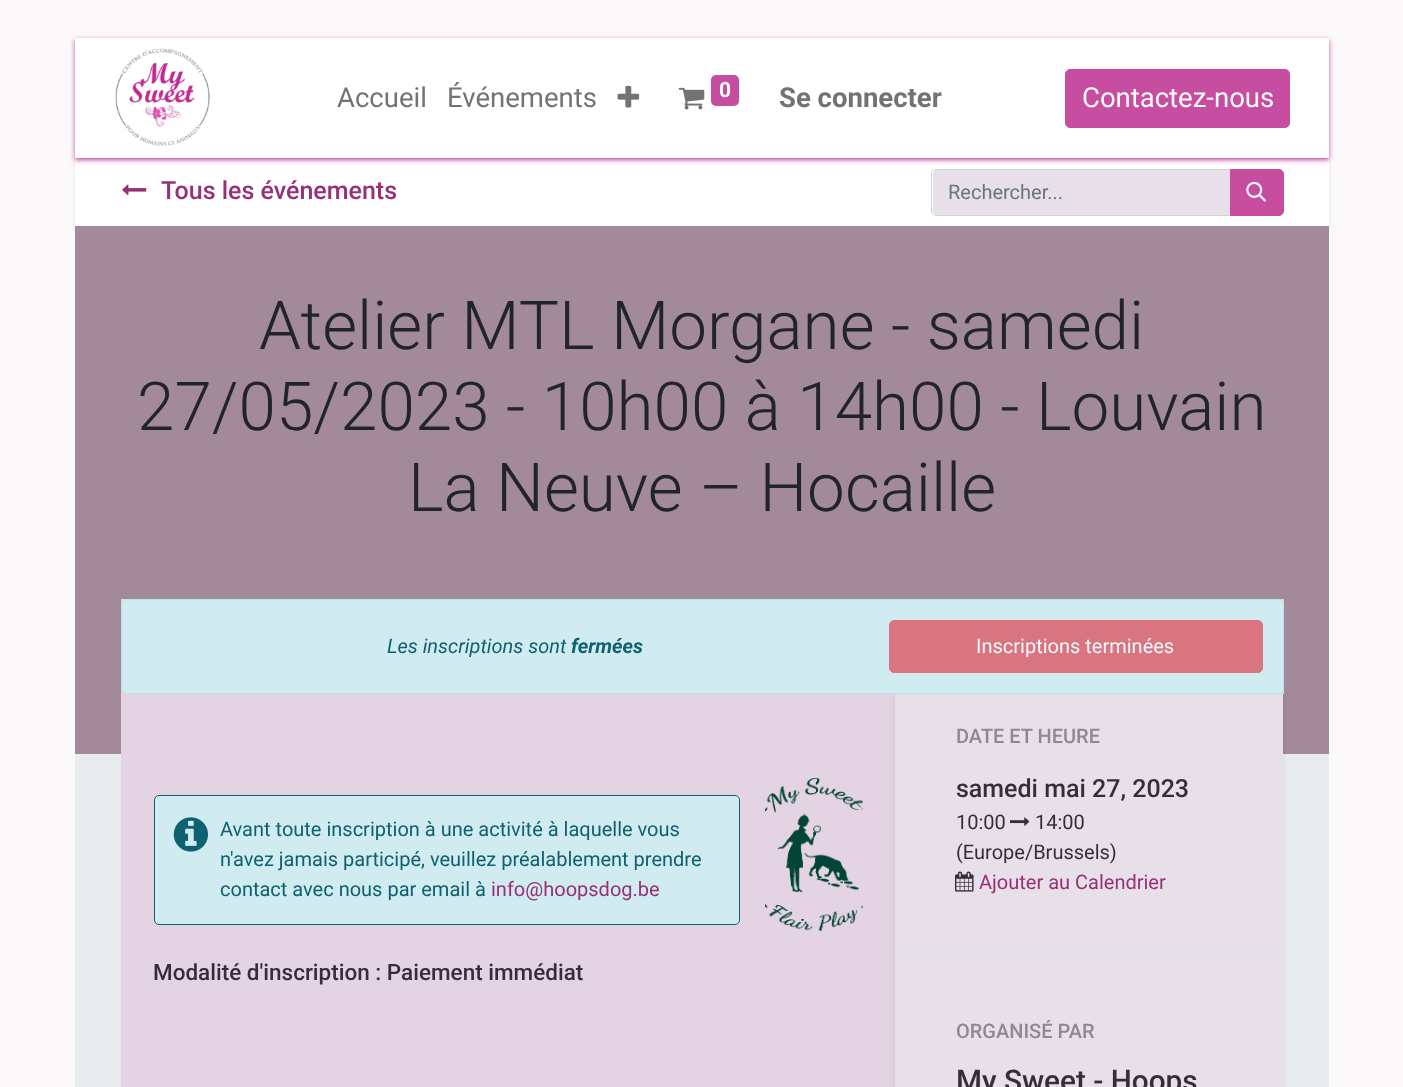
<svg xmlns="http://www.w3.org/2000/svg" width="1403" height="1087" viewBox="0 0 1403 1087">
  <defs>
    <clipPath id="clip1"><path d="M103 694h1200v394H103z"/></clipPath>
  </defs>
  <rect width="100%" height="100%" fill="#fbf9fa"/>
  <path d="M75 160h1254v69H75z" fill="#00000012" filter="blur(2.5px)"/>
  <path d="M75 159h1254v67H75z" fill="#fff"/>
  <path d="M75 158h1254v1H75z" fill="#dee2e6"/>
  <path d="M75 40h1254v120H75z" fill="#c74da0" filter="blur(2.5px)"/>
  <path d="M75 38h1254v120H75z" fill="#fff"/>
  <image x="115" y="48" width="95" height="98" href="img/1.png"/>
  <image x="617" y="85" width="23" height="23" href="img/2.png"/>
  <image x="678" y="87" width="27" height="23" href="img/3.png"/>
  <rect x="711" y="75" width="28" height="31" rx="5" fill="#c74da0"/>
  <rect x="1065.5" y="69.5" width="224" height="58" rx="4.5" fill="#c74da0" stroke="#c74da0"/>
  <path d="M75 754h1254v333H75z" fill="#e9ecef"/>
  <image x="122" y="184" width="25" height="12" href="img/4.png"/>
  <path d="M937 170H1230V215H937C935 215 933 213 933 211V174C933 172 935 170 937 170Z" fill="#e7e0e9"/>
  <path d="M936 169.5H1230.5V215.5H936C933.5 215.5 931.5 213.5 931.5 211V174C931.5 171.5 933.5 169.5 936 169.5Z" fill="none" stroke="#ced4da"/>
  <path d="M1230.5 169.5H1279C1281.5 169.5 1283.5 171.5 1283.5 174V211C1283.5 213.5 1281.5 215.5 1279 215.5H1230.5Z" fill="#c74da0" stroke="#c74da0"/>
  <image x="1246" y="181" width="21" height="21" href="img/5.png"/>
  <path d="M75 226h1254v528H75z" fill="#a38a9a"/>
  <path d="M121 599h1163v95H121z" fill="#e4d4e3"/>
  <rect x="121.5" y="599.5" width="1162" height="94" rx="4.5" fill="#d1ecf1" stroke="#b9e3ea"/>
  <rect x="889.5" y="620.5" width="373" height="52" rx="4.5" fill="#d87581" stroke="#d87581"/>
  <path d="M121 694h774v393H121z" fill="#e4d4e3"/>
  <rect x="154.5" y="795.5" width="585" height="129" rx="4.5" fill="#d1ecf1" stroke="#0e616e"/>
  <image x="173" y="817" width="35" height="35" href="img/6.png"/>
  <image x="765" y="777" width="98" height="155" href="img/7.png"/>
  <g clip-path="url(#clip1)">
    <path d="M895 666h388v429H895z" fill="#00000012" filter="blur(2.5px)"/>
  </g>
  <path d="M895 694h388v393H895z" fill="#e7e0e9"/>
  <path d="M895 958h388v1H895z" fill="#dee2e6"/>
  <image x="1010" y="817" width="20" height="9" href="img/8.png"/>
  <image x="955" y="871" width="19" height="21" href="img/9.png"/>
  <g font-family="Roboto" font-size="27.5" fill="#737373">
    <text x="337" y="107">Accueil</text>
    <text x="447" y="107">Événements</text>
  </g>
  <text x="719" y="97" font-family="Roboto" font-size="21" font-weight="bold" fill="#fff">0</text>
  <text x="779" y="107" font-family="Roboto" font-size="27.5" font-weight="bold" fill="#737373">Se connecter</text>
  <text x="1082" y="107" font-family="Roboto" font-size="27.5" fill="#fff">Contactez-nous</text>
  <text x="161" y="199" font-family="Roboto" font-size="25" font-weight="500" fill="#983077">Tous les événements</text>
  <text x="948" y="199" font-family="Roboto" font-size="20" fill="#6c757d">Rechercher...</text>
  <g font-family="Roboto" font-size="67.4" font-weight="300" fill="#212529">
    <text x="259" y="349">Atelier MTL Morgane - samedi</text>
    <text x="137" y="430">27/05/2023 - 10h00 à 14h00 - Louvain</text>
    <text x="408" y="511">La Neuve – Hocaille</text>
  </g>
  <text x="387" y="653" font-family="Roboto" font-size="20" font-style="italic" fill="#0e616e">Les inscriptions sont</text>
  <text x="571" y="653" font-family="Roboto" font-size="20" font-weight="bold" font-style="italic" fill="#0e616e">fermées</text>
  <text x="976" y="653" font-family="Roboto" font-size="20" fill="#eff8fa">Inscriptions terminées</text>
  <g font-family="Roboto" font-size="20" fill="#0e616e">
    <text x="220" y="836">Avant toute inscription à une activité à laquelle vous</text>
    <text x="220" y="866">n'avez jamais participé, veuillez préalablement prendre</text>
    <text x="220" y="896">contact avec nous par email à</text>
  </g>
  <text x="491" y="896" font-family="Roboto" font-size="20" fill="#983077">info@hoopsdog.be</text>
  <text x="153" y="980" font-family="Roboto" font-size="22.5" font-weight="500" fill="#3a2b3b">Modalité d'inscription : Paiement immédiat</text>
  <text x="956" y="743" font-family="Roboto" font-size="20" font-weight="500" fill="#918692">DATE ET HEURE</text>
  <text x="956" y="797" font-family="Roboto" font-size="25" font-weight="500" fill="#3a2b3b">samedi mai 27, 2023</text>
  <g font-family="Roboto" font-size="20" fill="#3a2b3b">
    <text x="956" y="829">10:00</text>
    <text x="1035" y="829">14:00</text>
    <text x="956" y="859">(Europe/Brussels)</text>
  </g>
  <text x="979" y="889" font-family="Roboto" font-size="20" fill="#983077">Ajouter au Calendrier</text>
  <text x="956" y="1038" font-family="Roboto" font-size="20" font-weight="500" fill="#918692">ORGANISÉ PAR</text>
  <text x="956" y="1091" font-family="Roboto" font-size="29.75" font-weight="500" fill="#3a2b3b">My Sweet - Hoops</text>
</svg>
